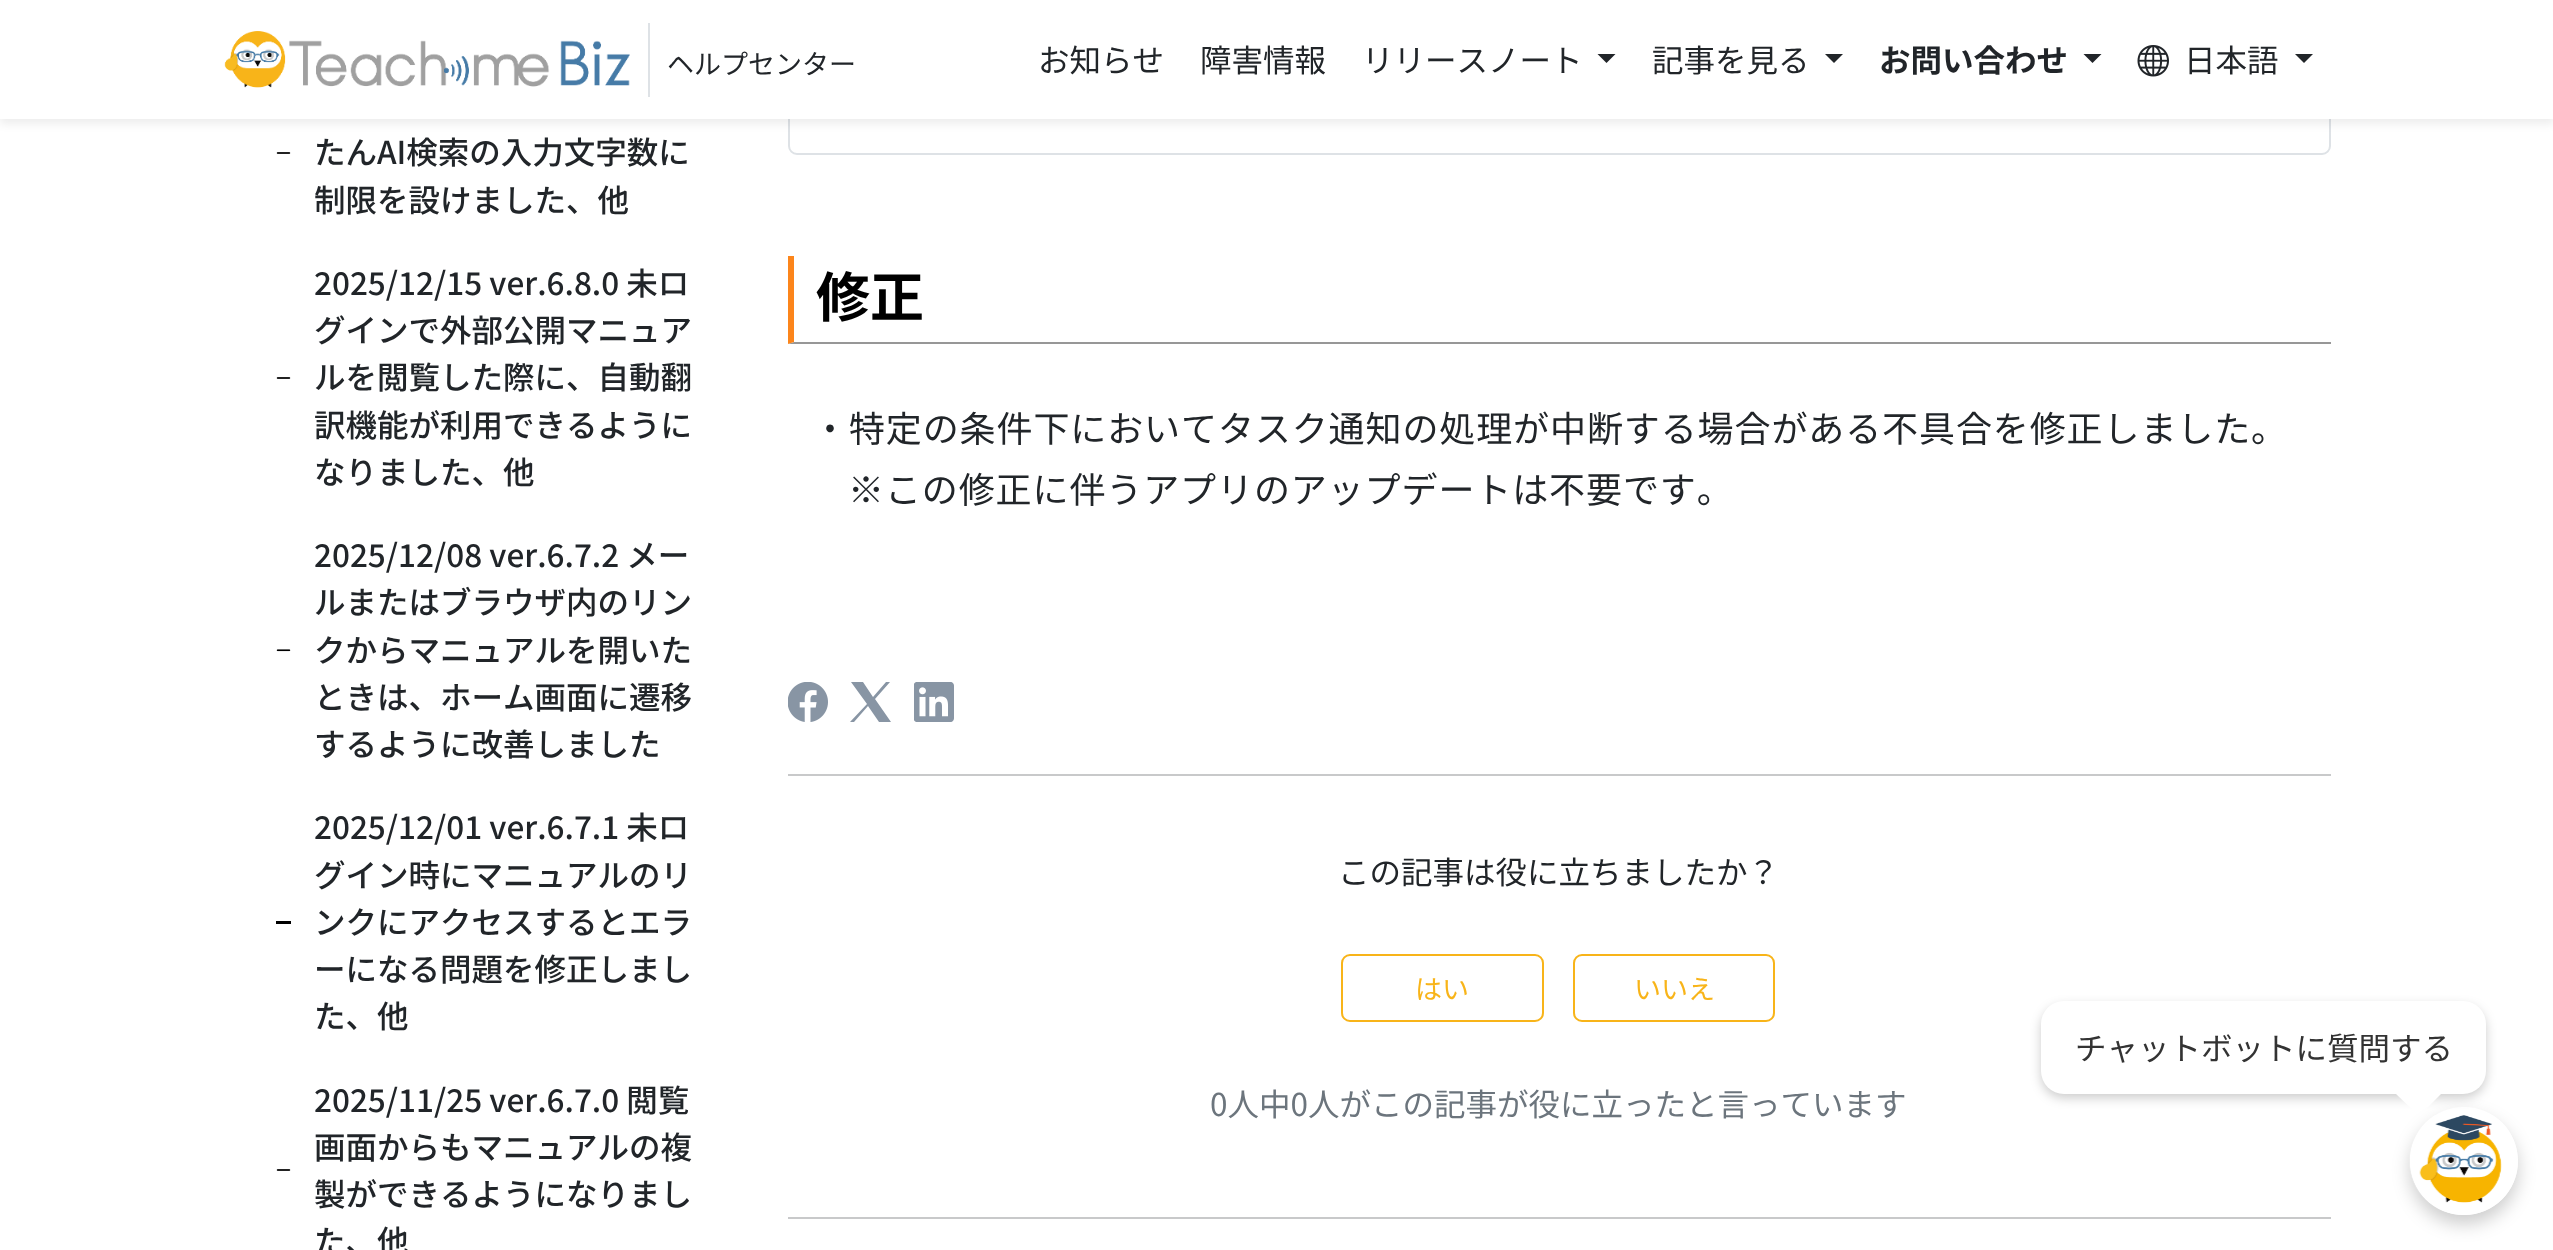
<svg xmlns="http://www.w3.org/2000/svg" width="2553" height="1250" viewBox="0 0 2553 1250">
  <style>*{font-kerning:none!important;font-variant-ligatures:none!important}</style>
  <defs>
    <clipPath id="clip1"><path d="M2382 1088H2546V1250H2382ZM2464 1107C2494 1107 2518 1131 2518 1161C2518 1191 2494 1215 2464 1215C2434 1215 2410 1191 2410 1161C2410 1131 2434 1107 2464 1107Z" clip-rule="evenodd"/></clipPath>
  </defs>
  <rect width="100%" height="100%" fill="#fff"/>
  <rect x="789" y="-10" width="1541" height="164" rx="8" fill="none" stroke="#dee2e6" stroke-width="2"/>
  <path d="M0 5h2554v119H0z" fill="#00000012" filter="blur(4.5px)"/>
  <path d="M0 0h2553v119H0z" fill="#fff"/>
  <image x="224" y="31" width="406" height="57" href="img/1.png"/>
  <path d="M648 23h2v74H648z" fill="#dee2e6"/>
  <path d="M1597.5 54H1615.5L1606.5 63Z" fill="#212529"/>
  <path d="M1825 54H1843L1834 63Z" fill="#212529"/>
  <path d="M2083.5 54H2101.5L2092.5 63Z" fill="#212529"/>
  <image x="2137" y="45" width="32" height="32" href="img/2.png"/>
  <path d="M2295 54H2313L2304 63Z" fill="#212529"/>
  <image x="276" y="152" width="15" height="2" href="img/3.png"/>
  <image x="276" y="377" width="15" height="2" href="img/3.png"/>
  <image x="276" y="649" width="15" height="3" href="img/4.png"/>
  <path d="M276 921h15v3H276z" fill="#000"/>
  <image x="276" y="1169" width="15" height="2" href="img/3.png"/>
  <path d="M2331 344H788L794 342H2331Z" fill="#979797"/>
  <path d="M788 344V256H794V342Z" fill="#fc851b"/>
  <image x="788" y="682" width="40" height="40" href="img/5.png"/>
  <path d="M851 682H863L873 697L886 682H890L875 699L891 722H879L868 706L854 722H850L867 704Z" fill="#8895a4"/>
  <image x="914" y="682" width="40" height="40" href="img/6.png"/>
  <path d="M788 774h1543v2H788z" fill="#c8c9ca"/>
  <rect x="1342" y="955" width="201" height="66" rx="8" fill="none" stroke="#f8b419" stroke-width="2"/>
  <rect x="1574" y="955" width="200" height="66" rx="8" fill="none" stroke="#f8b419" stroke-width="2"/>
  <path d="M788 1217h1543v2H788z" fill="#c8c9ca"/>
  <rect x="2041" y="1006" width="445" height="92" rx="23" fill="#00000033" filter="blur(5.5px)"/>
  <rect x="2041" y="1001" width="445" height="93" rx="23" fill="#fff"/>
  <path d="M2396 1094H2441L2419 1116Z" fill="#fff"/>
  <g clip-path="url(#clip1)">
    <rect x="2410" y="1116" width="108" height="108" rx="54" fill="#00000033" filter="blur(9px)"/>
  </g>
  <image x="2409" y="1115" width="109" height="100" href="img/7.png"/>
  <text x="667" y="74" font-family="Noto Sans JP" font-size="27" fill="#212529">ヘルプセンター</text>
  <g font-family="Noto Sans JP" font-size="31.5" fill="#212529">
    <text x="1038" y="72">お知らせ</text>
    <text x="1200" y="72">障害情報</text>
    <text x="1362" y="72">リリースノート</text>
    <text x="1652" y="72">記事を見る</text>
  </g>
  <text x="1879" y="72" font-family="Noto Sans JP" font-size="31.5" font-weight="bold" fill="#212529">お問い合わせ</text>
  <text x="2184" y="72" font-family="Noto Sans JP" font-size="31.5" fill="#212529">日本語</text>
  <g font-family="Noto Sans JP" font-size="31.5" font-weight="500" fill="#212529">
    <text x="314" y="164">たんAI検索の入力文字数に</text>
    <text x="314" y="212">制限を設けました、他</text>
    <text x="314" y="295">2025/12/15 ver.6.8.0 未ロ</text>
    <text x="314" y="342">グインで外部公開マニュア</text>
    <text x="314" y="389">ルを閲覧した際に、自動翻</text>
    <text x="314" y="437">訳機能が利用できるように</text>
    <text x="314" y="484">なりました、他</text>
    <text x="314" y="567">2025/12/08 ver.6.7.2 メー</text>
    <text x="314" y="614">ルまたはブラウザ内のリン</text>
    <text x="314" y="662">クからマニュアルを開いた</text>
    <text x="314" y="709">ときは、ホーム画面に遷移</text>
    <text x="314" y="756">するように改善しました</text>
    <text x="314" y="839">2025/12/01 ver.6.7.1 未ロ</text>
    <text x="314" y="887">グイン時にマニュアルのリ</text>
    <text x="314" y="934">ンクにアクセスするとエラ</text>
    <text x="314" y="981">ーになる問題を修正しまし</text>
    <text x="314" y="1028">た、他</text>
    <text x="314" y="1112">2025/11/25 ver.6.7.0 閲覧</text>
    <text x="314" y="1159">画面からもマニュアルの複</text>
    <text x="314" y="1206">製ができるようになりまし</text>
    <text x="314" y="1253">た、他</text>
  </g>
  <text x="816" y="317" font-family="Noto Sans JP" font-size="54" font-weight="bold" fill="#000">修正</text>
  <g font-family="Noto Sans JP" font-size="36" letter-spacing="0.9" fill="#212529">
    <text x="812" y="442">・特定の条件下においてタスク通知の処理が中断する場合がある不具合を修正しました。</text>
    <text x="848" y="503">※この修正に伴うアプリのアップデートは不要です。</text>
  </g>
  <text x="1338" y="884" font-family="Noto Sans JP" font-size="31.5" fill="#212529">この記事は役に立ちましたか？</text>
  <g font-family="Noto Sans JP" font-size="27" fill="#f8b419">
    <text x="1415" y="999">はい</text>
    <text x="1634" y="999">いいえ</text>
  </g>
  <text x="1210" y="1116" font-family="Noto Sans JP" font-size="31.5" fill="#6c757d">0人中0人がこの記事が役に立ったと言っています</text>
  <text x="2075" y="1060" font-family="Noto Sans JP" font-size="31.5" fill="#333">チャットボットに質問する</text>
</svg>
